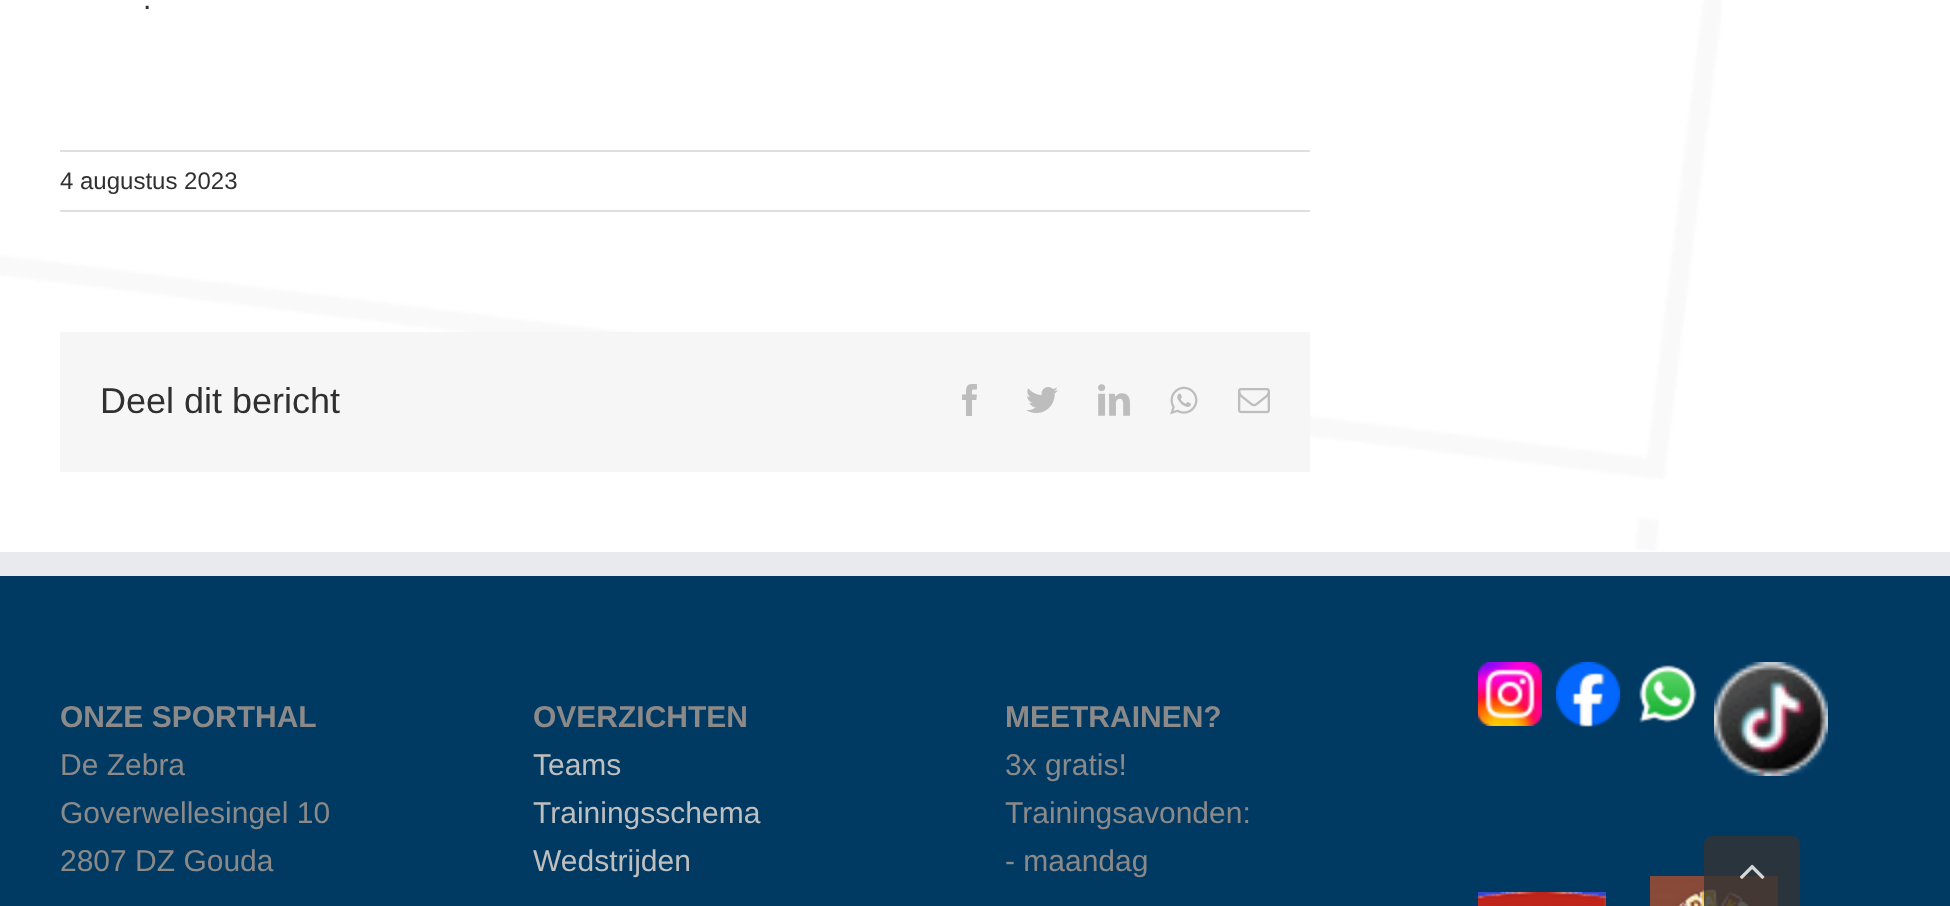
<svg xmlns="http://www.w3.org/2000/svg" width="1950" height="906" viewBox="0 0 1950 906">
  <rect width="100%" height="100%" fill="#fff"/>
  <image x="0" y="0" width="1722" height="551" href="img/1.png"/>
  <path d="M60 150h1250v2H60z" fill="#e0dede"/>
  <path d="M60 210h1250v2H60z" fill="#e0dede"/>
  <path d="M60 332h1250v140H60z" fill="#f6f6f6"/>
  <image x="962" y="384" width="15" height="32" href="img/2.png"/>
  <image x="1026" y="387" width="32" height="26" href="img/3.png"/>
  <image x="1098" y="384" width="32" height="32" href="img/4.png"/>
  <image x="1170" y="386" width="28" height="29" href="img/5.png"/>
  <image x="1238" y="388" width="32" height="26" href="img/6.png"/>
  <path d="M0 576h1950v330H0z" fill="#003a63"/>
  <path d="M0 552h1950v24H0z" fill="#e9eaee"/>
  <image x="1478" y="662" width="64" height="64" href="img/7.png"/>
  <image x="1556" y="662" width="64" height="65" href="img/8.png"/>
  <image x="1639" y="665" width="58" height="58" href="img/9.png"/>
  <image x="1714" y="662" width="114" height="114" href="img/10.png"/>
  <image x="1478" y="892" width="128" height="14" href="img/11.png"/>
  <image x="1650" y="876" width="128" height="30" href="img/12.png"/>
  <path d="M1712 836H1792C1796.5 836 1800 839.5 1800 844V906H1704V844C1704 839.5 1707.5 836 1712 836Z" fill="#333333cc"/>
  <image x="1740" y="864" width="25" height="15" href="img/13.png"/>
  <text x="143" y="9" font-family="Liberation Sans" font-size="30" fill="#303030">.</text>
  <text x="60" y="189" font-family="Liberation Sans" font-size="24" fill="#303030">4 augustus 2023</text>
  <text x="100" y="413" font-family="Liberation Sans" font-size="36" fill="#303030">Deel dit bericht</text>
  <text x="60" y="727" font-family="Liberation Sans" font-size="30" font-weight="bold" fill="#8c8989">ONZE SPORTHAL</text>
  <g font-family="Liberation Sans" font-size="30" fill="#8c8989">
    <text x="60" y="775">De Zebra</text>
    <text x="60" y="823">Goverwellesingel 10</text>
    <text x="60" y="871">2807 DZ Gouda</text>
  </g>
  <text x="533" y="727" font-family="Liberation Sans" font-size="30" font-weight="bold" fill="#8c8989">OVERZICHTEN</text>
  <g font-family="Liberation Sans" font-size="30" fill="#bfbfbf">
    <text x="533" y="775">Teams</text>
    <text x="533" y="823">Trainingsschema</text>
    <text x="533" y="871">Wedstrijden</text>
  </g>
  <text x="1005" y="727" font-family="Liberation Sans" font-size="30" font-weight="bold" fill="#8c8989">MEETRAINEN?</text>
  <g font-family="Liberation Sans" font-size="30" fill="#8c8989">
    <text x="1005" y="775">3x gratis!</text>
    <text x="1005" y="823">Trainingsavonden:</text>
    <text x="1005" y="871">- maandag</text>
  </g>
</svg>
